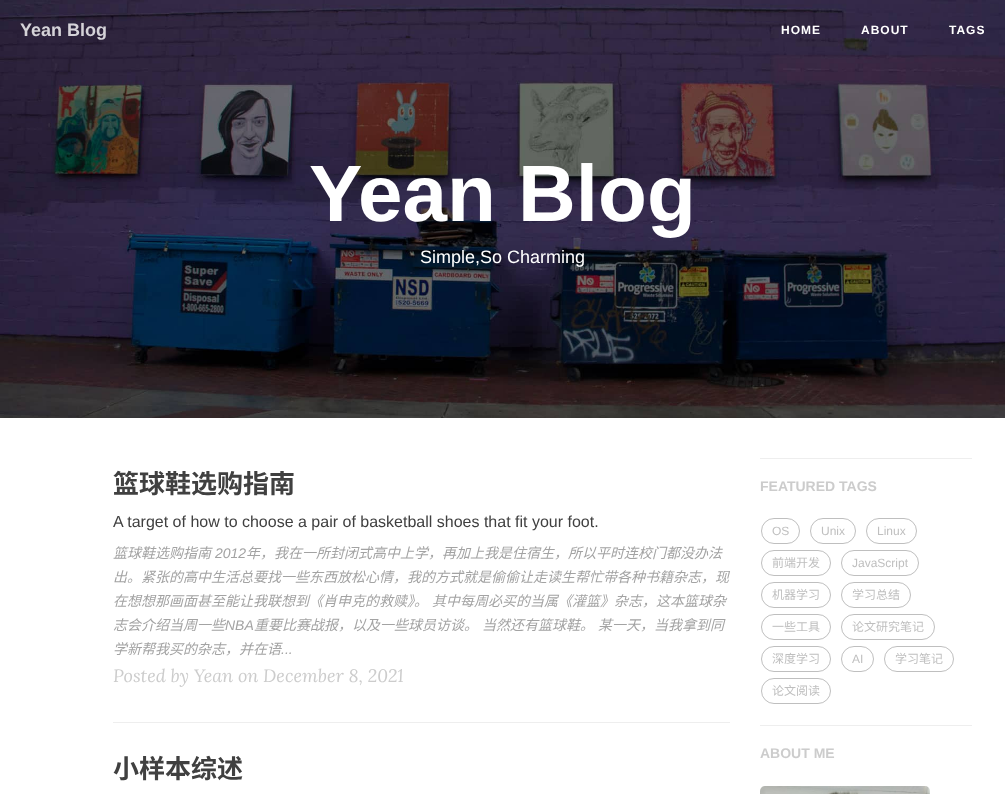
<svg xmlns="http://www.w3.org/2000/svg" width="1005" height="794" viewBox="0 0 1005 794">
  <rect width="100%" height="100%" fill="#fff"/>
  <image x="0" y="0" width="1005" height="418" href="img/1.png"/>
  <path d="M113 722h617v1H113z" fill="#eee"/>
  <path d="M760 458h212v1H760z" fill="#eee"/>
  <rect x="761.5" y="518.5" width="38" height="25" rx="12.5" fill="none" stroke="#bfbfbf"/>
  <rect x="810.5" y="518.5" width="45" height="25" rx="12.5" fill="none" stroke="#bfbfbf"/>
  <rect x="866.5" y="518.5" width="50" height="25" rx="12.5" fill="none" stroke="#bfbfbf"/>
  <rect x="761.5" y="550.5" width="69" height="25" rx="12.5" fill="none" stroke="#bfbfbf"/>
  <rect x="841.5" y="550.5" width="77" height="25" rx="12.5" fill="none" stroke="#bfbfbf"/>
  <rect x="761.5" y="582.5" width="69" height="25" rx="12.5" fill="none" stroke="#bfbfbf"/>
  <rect x="841.5" y="582.5" width="69" height="25" rx="12.5" fill="none" stroke="#bfbfbf"/>
  <rect x="761.5" y="614.5" width="69" height="25" rx="12.5" fill="none" stroke="#bfbfbf"/>
  <rect x="841.5" y="614.5" width="93" height="25" rx="12.5" fill="none" stroke="#bfbfbf"/>
  <rect x="761.5" y="646.5" width="69" height="25" rx="12.5" fill="none" stroke="#bfbfbf"/>
  <rect x="841.5" y="646.5" width="32" height="25" rx="12.5" fill="none" stroke="#bfbfbf"/>
  <rect x="884.5" y="646.5" width="69" height="25" rx="12.5" fill="none" stroke="#bfbfbf"/>
  <rect x="761.5" y="678.5" width="69" height="25" rx="12.5" fill="none" stroke="#bfbfbf"/>
  <path d="M760 725h212v1H760z" fill="#eee"/>
  <image x="760" y="786" width="170" height="8" href="img/2.png"/>
  <text x="20" y="36" font-family="Liberation Sans" font-size="18" font-weight="bold" fill="#d5d3d8">Yean Blog</text>
  <g font-family="Liberation Sans" font-size="12" font-weight="bold" letter-spacing="1" fill="#fff">
    <text x="781" y="34">HOME</text>
    <text x="861" y="34">ABOUT</text>
    <text x="949" y="34">TAGS</text>
  </g>
  <text x="309" y="221" font-family="Liberation Sans" font-size="80" font-weight="bold" fill="#fff">Yean Blog</text>
  <text x="420" y="263" font-family="Liberation Sans" font-size="18" fill="#fff">Simple,So Charming</text>
  <text x="113" y="493" font-family="Noto Sans CJK SC" font-size="26" font-weight="bold" fill="#404040">篮球鞋选购指南</text>
  <text x="113" y="527" font-family="Liberation Sans" font-size="16" fill="#404040">A target of how to choose a pair of basketball shoes that fit your foot.</text>
  <text x="113" y="558" font-family="Noto Sans CJK SC" font-size="14" font-style="italic" fill="#a3a3a3">篮球鞋选购指南</text>
  <text x="215" y="558" font-family="Liberation Sans" font-size="14" font-style="italic" fill="#a3a3a3">2012</text>
  <g font-family="Noto Sans CJK SC" font-size="14" font-style="italic" fill="#a3a3a3">
    <text x="246" y="558">年，我在一所封闭式高中上学，再加上我是住宿生，所以平时连校门都没办法</text>
    <text x="113" y="582">出。紧张的高中生活总要找一些东西放松心情，我的方式就是偷偷让走读生帮忙带各种书籍杂志，现</text>
    <text x="113" y="606">在想想那画面甚至能让我联想到《肖申克的救赎》。</text>
    <text x="432" y="606">其中每周必买的当属《灌篮》杂志，这本篮球杂</text>
    <text x="113" y="630">志会介绍当周一些</text>
  </g>
  <text x="225" y="630" font-family="Liberation Sans" font-size="14" font-style="italic" fill="#a3a3a3">NBA</text>
  <g font-family="Noto Sans CJK SC" font-size="14" font-style="italic" fill="#a3a3a3">
    <text x="254" y="630">重要比赛战报，以及一些球员访谈。</text>
    <text x="482" y="630">当然还有篮球鞋。</text>
    <text x="598" y="630">某一天，当我拿到同</text>
    <text x="113" y="654">学新帮我买的杂志，并在语</text>
  </g>
  <text x="281" y="654" font-family="Liberation Sans" font-size="14" font-style="italic" fill="#a3a3a3">...</text>
  <text x="113" y="682" font-family="Lora" font-size="18" font-style="italic" fill="#ccc">Posted by Yean on December 8, 2021</text>
  <text x="113" y="778" font-family="Noto Sans CJK SC" font-size="26" font-weight="bold" fill="#404040">小样本综述</text>
  <text x="760" y="491" font-family="Liberation Sans" font-size="14" font-weight="bold" fill="#ccc">FEATURED TAGS</text>
  <g font-family="Liberation Sans" font-size="12" fill="#bfbfbf">
    <text x="772" y="535">OS</text>
    <text x="821" y="535">Unix</text>
    <text x="877" y="535">Linux</text>
  </g>
  <text x="772" y="567" font-family="Noto Sans CJK SC" font-size="12" fill="#bfbfbf">前端开发</text>
  <text x="852" y="567" font-family="Liberation Sans" font-size="12" fill="#bfbfbf">JavaScript</text>
  <g font-family="Noto Sans CJK SC" font-size="12" fill="#bfbfbf">
    <text x="772" y="599">机器学习</text>
    <text x="852" y="599">学习总结</text>
    <text x="772" y="631">一些工具</text>
    <text x="852" y="631">论文研究笔记</text>
    <text x="772" y="663">深度学习</text>
  </g>
  <text x="852" y="663" font-family="Liberation Sans" font-size="12" fill="#bfbfbf">AI</text>
  <g font-family="Noto Sans CJK SC" font-size="12" fill="#bfbfbf">
    <text x="895" y="663">学习笔记</text>
    <text x="772" y="695">论文阅读</text>
  </g>
  <text x="760" y="758" font-family="Liberation Sans" font-size="14" font-weight="bold" fill="#ccc">ABOUT ME</text>
</svg>
